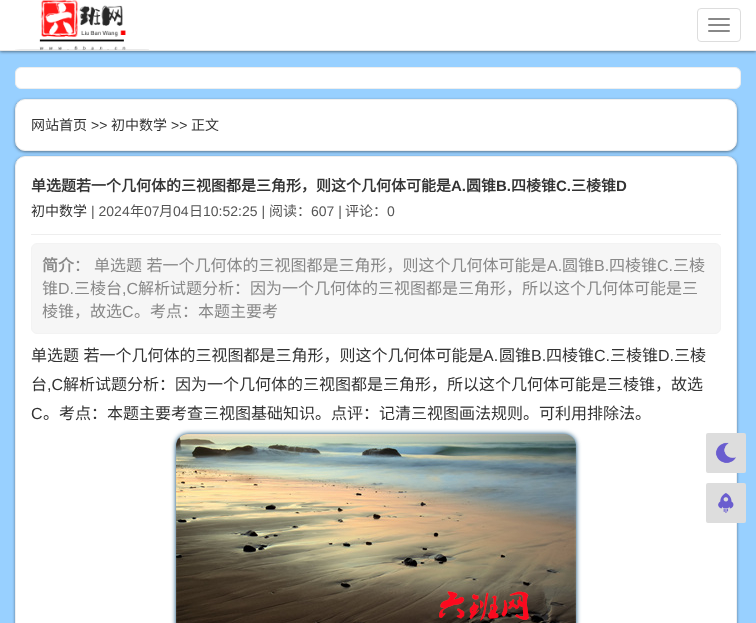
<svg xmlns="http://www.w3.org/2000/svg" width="756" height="623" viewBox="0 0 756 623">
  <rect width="100%" height="100%" fill="#98d0ff"/>
  <path d="M0 1h756v51H0z" fill="#1a1a1a80" filter="blur(1.5px)"/>
  <path d="M0 0h756v50H0z" fill="#fff"/>
  <path d="M0 50h756v1H0z" fill="#e7e7e7"/>
  <image x="15" y="0" width="134" height="50" href="img/1.png"/>
  <rect x="697.5" y="8.5" width="43" height="33" rx="3.5" fill="none" stroke="#ddd"/>
  <rect x="708" y="18" width="22" height="2" rx="1" fill="#888"/>
  <rect x="708" y="24" width="22" height="2" rx="1" fill="#888"/>
  <rect x="708" y="30" width="22" height="2" rx="1" fill="#888"/>
  <rect x="15.5" y="67.5" width="725" height="21" rx="5.5" fill="#fff" stroke="#eee"/>
  <rect x="15" y="100" width="722" height="52" rx="10" fill="#1a1a1a80" filter="blur(1.5px)"/>
  <rect x="15.5" y="99.5" width="721" height="51" rx="9.5" fill="#fff" stroke="#efefef"/>
  <rect x="15" y="157" width="722" height="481" rx="10" fill="#1a1a1a80" filter="blur(1.5px)"/>
  <rect x="15.5" y="156.5" width="721" height="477" rx="9.5" fill="#fff" stroke="#efefef"/>
  <path d="M31 234h690v1H31z" fill="#eee"/>
  <rect x="31.5" y="243.5" width="689" height="90" rx="5.5" fill="#f6f6f6" stroke="#f3f3f3"/>
  <rect x="176" y="434" width="400" height="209" rx="12" fill="#00436f" filter="blur(2.5px)"/>
  <image x="176" y="434" width="400" height="189" href="img/2.png"/>
  <rect x="706" y="433" width="40" height="40" rx="2" fill="#ddd"/>
  <image x="715" y="442" width="21" height="21" href="img/3.png"/>
  <rect x="706" y="483" width="40" height="40" rx="2" fill="#ddd"/>
  <image x="718" y="493" width="16" height="20" href="img/4.png"/>
  <text x="31" y="130" font-family="Noto Sans CJK SC" font-size="14" fill="#333">网站首页</text>
  <text x="91" y="130" font-family="Liberation Sans" font-size="14" fill="#333">&gt;&gt;</text>
  <text x="111" y="130" font-family="Noto Sans CJK SC" font-size="14" fill="#333">初中数学</text>
  <text x="171" y="130" font-family="Liberation Sans" font-size="14" fill="#333">&gt;&gt;</text>
  <text x="191" y="130" font-family="Noto Sans CJK SC" font-size="14" fill="#333">正文</text>
  <text x="31" y="191" font-family="Noto Sans CJK SC" font-size="15" font-weight="bold" fill="#333">单选题若一个几何体的三视图都是三角形，则这个几何体可能是</text>
  <text x="451" y="191" font-family="Liberation Sans" font-size="15" font-weight="bold" fill="#333">A.</text>
  <text x="466" y="191" font-family="Noto Sans CJK SC" font-size="15" font-weight="bold" fill="#333">圆锥</text>
  <text x="496" y="191" font-family="Liberation Sans" font-size="15" font-weight="bold" fill="#333">B.</text>
  <text x="511" y="191" font-family="Noto Sans CJK SC" font-size="15" font-weight="bold" fill="#333">四棱锥</text>
  <text x="556" y="191" font-family="Liberation Sans" font-size="15" font-weight="bold" fill="#333">C.</text>
  <text x="571" y="191" font-family="Noto Sans CJK SC" font-size="15" font-weight="bold" fill="#333">三棱锥</text>
  <text x="616" y="191" font-family="Liberation Sans" font-size="15" font-weight="bold" fill="#333">D</text>
  <text x="31" y="216" font-family="Noto Sans CJK SC" font-size="14" fill="#333">初中数学</text>
  <text x="91" y="216" font-family="Liberation Sans" font-size="14" fill="#555">| 2024</text>
  <text x="130" y="216" font-family="Noto Sans CJK SC" font-size="14" fill="#555">年</text>
  <text x="144" y="216" font-family="Liberation Sans" font-size="14" fill="#555">07</text>
  <text x="159" y="216" font-family="Noto Sans CJK SC" font-size="14" fill="#555">月</text>
  <text x="173" y="216" font-family="Liberation Sans" font-size="14" fill="#555">04</text>
  <text x="189" y="216" font-family="Noto Sans CJK SC" font-size="14" fill="#555">日</text>
  <text x="203" y="216" font-family="Liberation Sans" font-size="14" fill="#555">10:52:25 |</text>
  <text x="269" y="216" font-family="Noto Sans CJK SC" font-size="14" fill="#555">阅读：</text>
  <text x="311" y="216" font-family="Liberation Sans" font-size="14" fill="#555">607 |</text>
  <text x="345" y="216" font-family="Noto Sans CJK SC" font-size="14" fill="#555">评论：</text>
  <text x="387" y="216" font-family="Liberation Sans" font-size="14" fill="#555">0</text>
  <text x="42" y="271" font-family="Noto Sans CJK SC" font-size="16" font-weight="bold" fill="#888">简介</text>
  <g font-family="Noto Sans CJK SC" font-size="16" fill="#888">
    <text x="74" y="271">：</text>
    <text x="94" y="271" word-spacing="1">单选题 若一个几何体的三视图都是三角形，则这个几何体可能是</text>
  </g>
  <text x="547" y="271" font-family="Liberation Sans" font-size="16" fill="#888">A.</text>
  <text x="562" y="271" font-family="Noto Sans CJK SC" font-size="16" fill="#888">圆锥</text>
  <text x="594" y="271" font-family="Liberation Sans" font-size="16" fill="#888">B.</text>
  <text x="609" y="271" font-family="Noto Sans CJK SC" font-size="16" fill="#888">四棱锥</text>
  <text x="657" y="271" font-family="Liberation Sans" font-size="16" fill="#888">C.</text>
  <g font-family="Noto Sans CJK SC" font-size="16" fill="#888">
    <text x="673" y="271">三棱</text>
    <text x="42" y="294">锥</text>
  </g>
  <text x="58" y="294" font-family="Liberation Sans" font-size="16" fill="#888">D.</text>
  <text x="74" y="294" font-family="Noto Sans CJK SC" font-size="16" fill="#888">三棱台</text>
  <text x="122" y="294" font-family="Liberation Sans" font-size="16" fill="#888">,C</text>
  <g font-family="Noto Sans CJK SC" font-size="16" fill="#888">
    <text x="138" y="294">解析试题分析：因为一个几何体的三视图都是三角形，所以这个几何体可能是三</text>
    <text x="42" y="317">棱锥，故选</text>
  </g>
  <text x="122" y="317" font-family="Liberation Sans" font-size="16" fill="#888">C</text>
  <text x="134" y="317" font-family="Noto Sans CJK SC" font-size="16" fill="#888">。考点：本题主要考</text>
  <text x="31" y="361" word-spacing="1" font-family="Noto Sans CJK SC" font-size="16" fill="#333">单选题 若一个几何体的三视图都是三角形，则这个几何体可能是</text>
  <text x="483" y="361" font-family="Liberation Sans" font-size="16" fill="#333">A.</text>
  <text x="499" y="361" font-family="Noto Sans CJK SC" font-size="16" fill="#333">圆锥</text>
  <text x="531" y="361" font-family="Liberation Sans" font-size="16" fill="#333">B.</text>
  <text x="546" y="361" font-family="Noto Sans CJK SC" font-size="16" fill="#333">四棱锥</text>
  <text x="594" y="361" font-family="Liberation Sans" font-size="16" fill="#333">C.</text>
  <text x="610" y="361" font-family="Noto Sans CJK SC" font-size="16" fill="#333">三棱锥</text>
  <text x="658" y="361" font-family="Liberation Sans" font-size="16" fill="#333">D.</text>
  <g font-family="Noto Sans CJK SC" font-size="16" fill="#333">
    <text x="674" y="361">三棱</text>
    <text x="31" y="390">台</text>
  </g>
  <text x="47" y="390" font-family="Liberation Sans" font-size="16" fill="#333">,C</text>
  <text x="63" y="390" font-family="Noto Sans CJK SC" font-size="16" fill="#333">解析试题分析：因为一个几何体的三视图都是三角形，所以这个几何体可能是三棱锥，故选</text>
  <text x="31" y="419" font-family="Liberation Sans" font-size="16" fill="#333">C</text>
  <text x="43" y="419" font-family="Noto Sans CJK SC" font-size="16" fill="#333">。考点：本题主要考查三视图基础知识。点评：记清三视图画法规则。可利用排除法。</text>
</svg>
